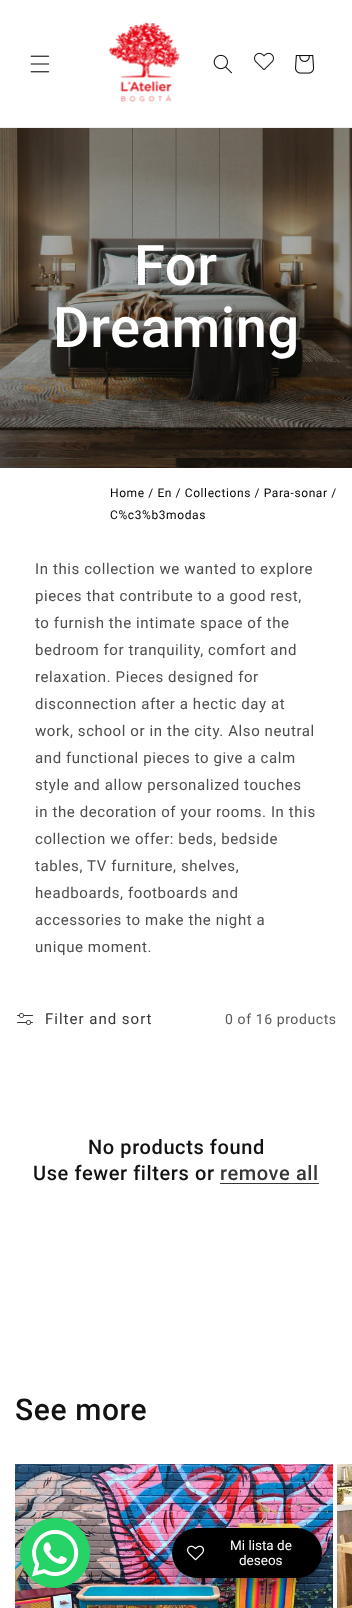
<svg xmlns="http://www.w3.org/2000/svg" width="352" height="1608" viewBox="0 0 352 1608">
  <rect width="100%" height="100%" fill="#fff"/>
  <path d="M0 127h352v1H0z" fill="#ececec"/>
  <image x="30" y="55" width="20" height="18" href="img/1.png"/>
  <image x="108" y="22" width="72" height="81" href="img/2.png"/>
  <image x="213" y="54" width="19" height="20" href="img/3.png"/>
  <image x="254" y="52" width="20" height="18" href="img/4.png"/>
  <image x="295" y="55" width="20" height="19" href="img/5.png"/>
  <image x="0" y="128" width="352" height="340" href="img/6.png"/>
  <image x="17" y="1013" width="16" height="12" href="img/7.png"/>
  <path d="M220 1183h99v1H220z" fill="#363636"/>
  <image x="15" y="1464" width="318" height="144" href="img/8.png"/>
  <image x="337" y="1464" width="15" height="144" href="img/9.png"/>
  <image x="20" y="1518" width="70" height="70" href="img/10.png"/>
  <rect x="172" y="1533" width="150" height="50" rx="25" fill="#00000059" filter="blur(7.5px)"/>
  <rect x="172" y="1528" width="150" height="50" rx="25" fill="#000"/>
  <image x="187" y="1545" width="17" height="16" href="img/11.png"/>
  <g font-family="Roboto" font-size="56" font-weight="500" letter-spacing="0.6" fill="#fff">
    <text x="134" y="285">For</text>
    <text x="53" y="347">Dreaming</text>
  </g>
  <g font-family="Roboto" font-size="12" letter-spacing="0.6" fill="#000">
    <text x="110" y="497">Home / En / Collections / Para-sonar /</text>
    <text x="110" y="519">C%c3%b3modas</text>
  </g>
  <g font-family="Roboto" font-size="15" letter-spacing="0.6" fill="#4d4d4d">
    <text x="35" y="574">In this collection we wanted to explore</text>
    <text x="35" y="601">pieces that contribute to a good rest,</text>
    <text x="35" y="628">to furnish the intimate space of the</text>
    <text x="35" y="655">bedroom for tranquility, comfort and</text>
    <text x="35" y="682">relaxation. Pieces designed for</text>
    <text x="35" y="709">disconnection after a hectic day at</text>
    <text x="35" y="736">work, school or in the city. Also neutral</text>
    <text x="35" y="763">and functional pieces to give a calm</text>
    <text x="35" y="790">style and allow personalized touches</text>
    <text x="35" y="817">in the decoration of your rooms. In this</text>
    <text x="35" y="844">collection we offer: beds, bedside</text>
    <text x="35" y="871">tables, TV furniture, shelves,</text>
    <text x="35" y="898">headboards, footboards and</text>
    <text x="35" y="925">accessories to make the night a</text>
    <text x="35" y="952">unique moment.</text>
  </g>
  <text x="45" y="1024" font-family="Roboto" font-size="15" letter-spacing="1" fill="#363636">Filter and sort</text>
  <text x="225" y="1024" font-family="Roboto" font-size="14" letter-spacing="0.6" fill="#595959">0 of 16 products</text>
  <g font-family="Roboto" font-size="20" font-weight="500" letter-spacing="0.6" fill="#121212">
    <text x="88" y="1154">No products found</text>
    <text x="33" y="1180">Use fewer filters or</text>
  </g>
  <text x="220" y="1180" font-family="Roboto" font-size="20" font-weight="500" letter-spacing="0.6" fill="#363636">remove all</text>
  <text x="15" y="1420" font-family="Roboto" font-size="30" font-weight="500" letter-spacing="0.6" fill="#121212">See more</text>
  <g font-family="Roboto" font-size="13.5" fill="#fff">
    <text x="230" y="1550">Mi lista de</text>
    <text x="239" y="1565">deseos</text>
  </g>
</svg>
